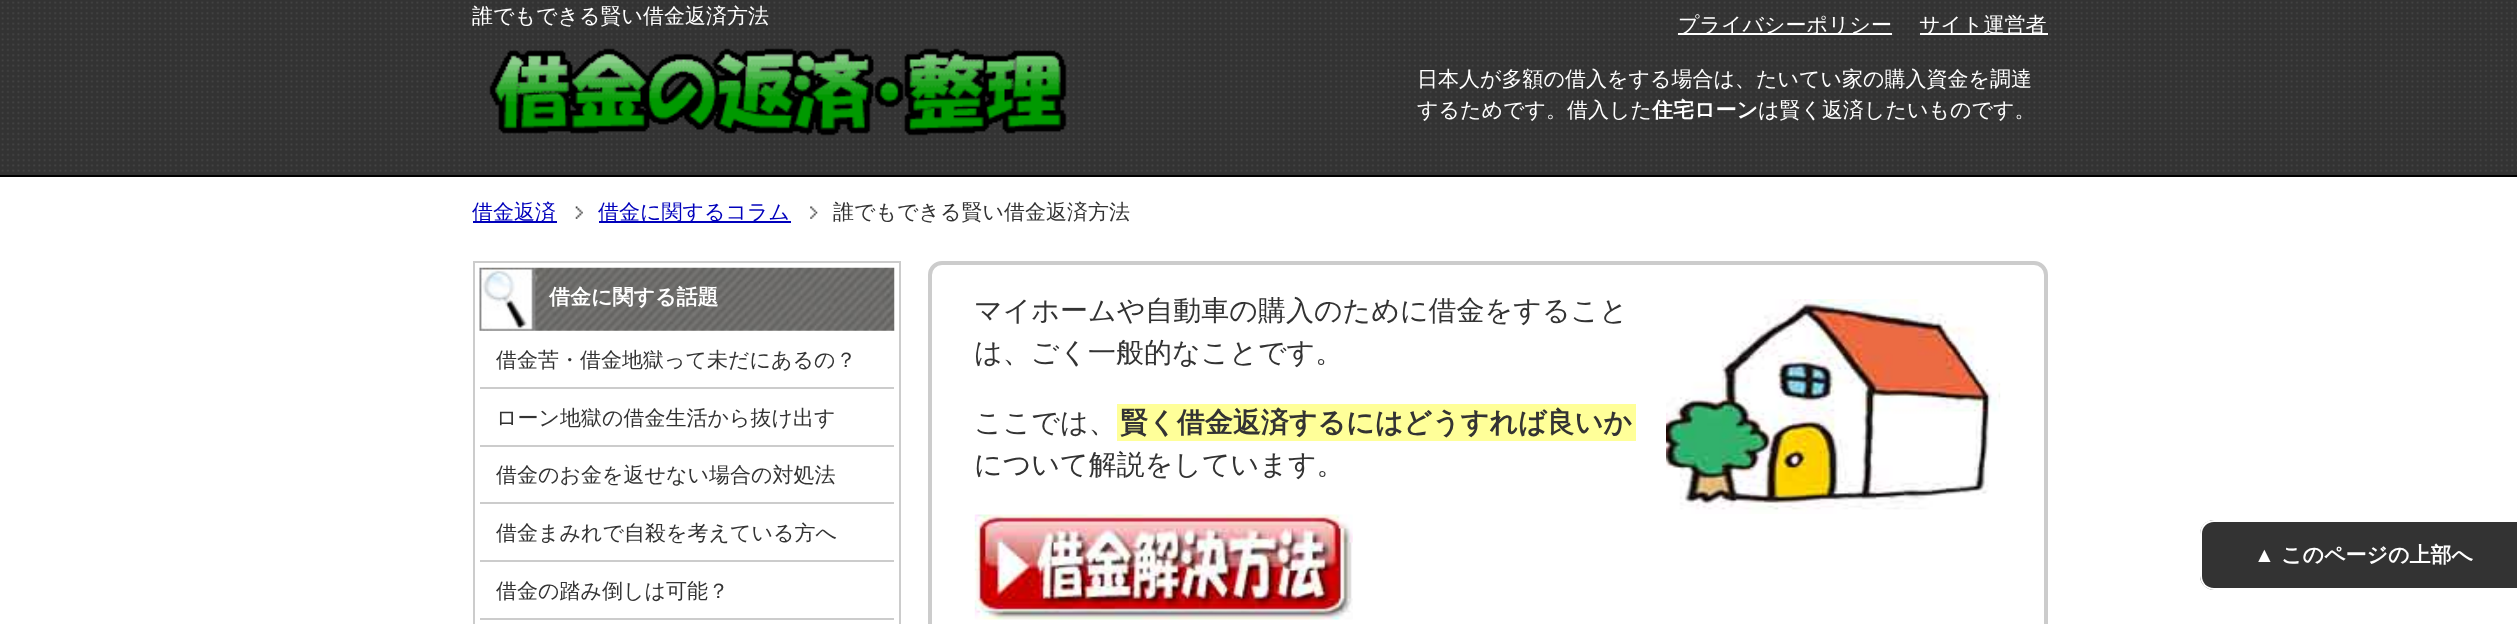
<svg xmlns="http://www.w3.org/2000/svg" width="2517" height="624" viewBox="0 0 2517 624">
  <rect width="100%" height="100%" fill="#333"/>
  <image x="1" y="1" width="2516" height="171" href="img/1.png"/>
  <path d="M0 175h2517v2H0z" fill="#000"/>
  <image x="489" y="48" width="578" height="88" href="img/2.png"/>
  <path d="M1678 33h214v2H1678z" fill="#fff"/>
  <path d="M1920 33h128v2H1920z" fill="#fff"/>
  <path d="M0 177h2517v447H0z" fill="#fff"/>
  <path d="M473 221h84v2H473z" fill="#00b"/>
  <image x="575" y="206" width="8" height="13" href="img/3.png"/>
  <path d="M599 221h192v2H599z" fill="#00b"/>
  <image x="810" y="206" width="8" height="13" href="img/4.png"/>
  <path d="M474 262h426v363H474z" fill="none" stroke="#ccc" stroke-width="2"/>
  <image x="479" y="267" width="416" height="64" href="img/5.png"/>
  <path d="M480 387h414v2H480z" fill="#ccc"/>
  <path d="M480 445h414v2H480z" fill="#ccc"/>
  <path d="M480 502h414v2H480z" fill="#ccc"/>
  <path d="M480 560h414v2H480z" fill="#ccc"/>
  <path d="M480 618h414v2H480z" fill="#ccc"/>
  <rect x="930" y="263" width="1116" height="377" rx="12" fill="none" stroke="#ccc" stroke-width="4"/>
  <image x="1666" y="299" width="335" height="215" href="img/6.png"/>
  <path d="M1117 404h519v37H1117z" fill="#ff9"/>
  <image x="974" y="514" width="379" height="106" href="img/7.png"/>
  <path d="M2214 520H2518V590H2214C2206.5 590 2200 583.5 2200 576V534C2200 526.5 2206.5 520 2214 520Z" fill="#333"/>
  <path d="M2214 520H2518V590H2214C2206 590 2200 583 2200 576V534C2200 526 2206 520 2214 520ZM2214 522H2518V588H2214C2207 588 2202 583 2202 576V534C2202 527 2207 522 2214 522Z" fill="#fff" fill-rule="evenodd"/>
  <g font-family="WenQuanYi Zen Hei" font-size="21" font-weight="500" fill="#fff">
    <text x="472" y="23">誰でもできる賢い借金返済方法</text>
    <text x="1417" y="86">日本人が多額の借入をする場合は、たいてい家の購入資金を調達</text>
    <text x="1417" y="117">するためです。借入した</text>
  </g>
  <text x="1652" y="117" font-family="WenQuanYi Zen Hei" font-size="21" font-weight="bold" fill="#fff">住宅ローン</text>
  <g font-family="WenQuanYi Zen Hei" font-size="21" font-weight="500" fill="#fff">
    <text x="1758" y="117">は賢く返済したいものです。</text>
    <text x="1678" y="32">プライバシーポリシー</text>
    <text x="1919" y="32">サイト運営者</text>
  </g>
  <g font-family="WenQuanYi Zen Hei" font-size="21" font-weight="500" fill="#00b">
    <text x="472" y="219">借金返済</text>
    <text x="598" y="219">借金に関するコラム</text>
  </g>
  <text x="833" y="219" font-family="WenQuanYi Zen Hei" font-size="21" font-weight="500" fill="#333">誰でもできる賢い借金返済方法</text>
  <text x="549" y="304" font-family="WenQuanYi Zen Hei" font-size="21" font-weight="bold" fill="#fff">借金に関する話題</text>
  <g font-family="WenQuanYi Zen Hei" font-size="21" font-weight="500" fill="#333">
    <text x="496" y="367">借金苦・借金地獄って未だにあるの？</text>
    <text x="496" y="425">ローン地獄の借金生活から抜け出す</text>
    <text x="496" y="482">借金のお金を返せない場合の対処法</text>
    <text x="496" y="540">借金まみれで自殺を考えている方へ</text>
    <text x="496" y="598">借金の踏み倒しは可能？</text>
  </g>
  <g font-family="WenQuanYi Zen Hei" font-size="28" font-weight="500" fill="#333">
    <text x="974" y="320">マイホームや自動車の購入のために借金をすること</text>
    <text x="974" y="362">は、ごく一般的なことです。</text>
    <text x="974" y="432">ここでは、</text>
  </g>
  <text x="1120" y="432" font-family="WenQuanYi Zen Hei" font-size="28" font-weight="bold" fill="#333">賢く借金返済するにはどうすれば良いか</text>
  <text x="974" y="474" font-family="WenQuanYi Zen Hei" font-size="28" font-weight="500" fill="#333">について解説をしています。</text>
  <text x="2254" y="562" font-family="Liberation Sans" font-size="21" font-weight="bold" fill="#fff">▲</text>
  <text x="2281" y="562" font-family="WenQuanYi Zen Hei" font-size="21" font-weight="bold" fill="#fff">このページの上部へ</text>
</svg>
